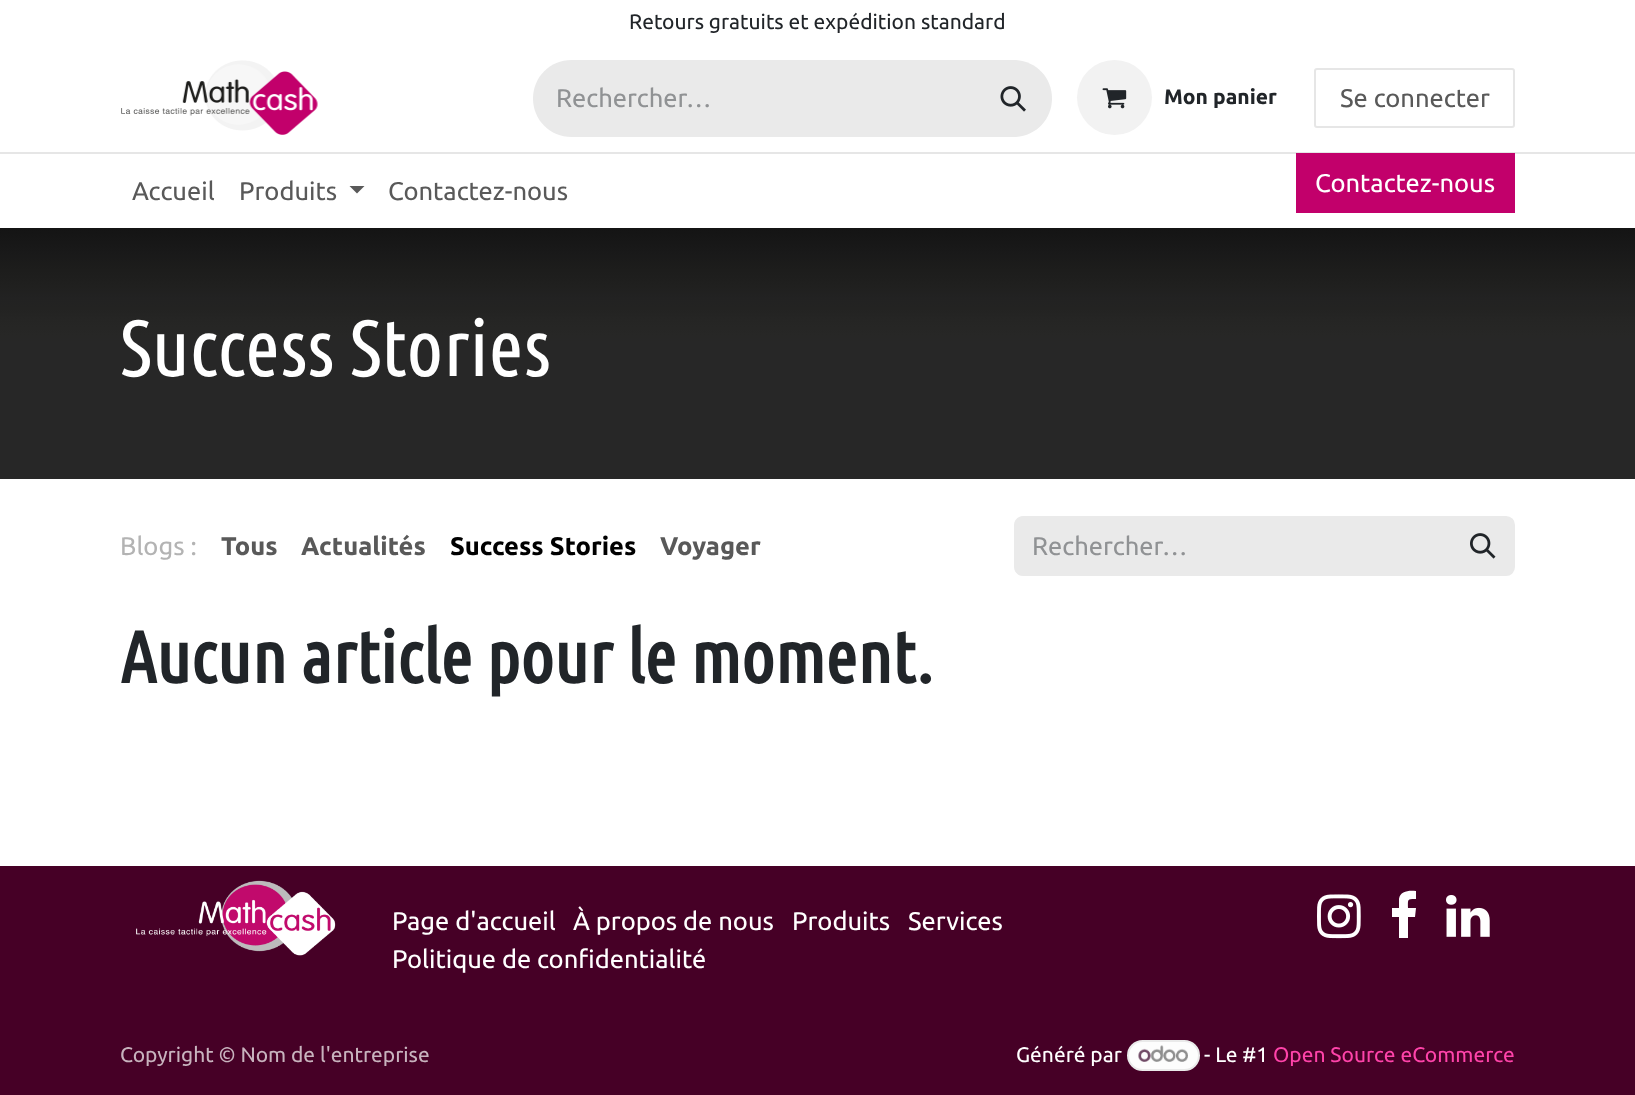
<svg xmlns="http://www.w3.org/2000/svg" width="1635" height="1095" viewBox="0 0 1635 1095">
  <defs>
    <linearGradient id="g1" gradientUnits="userSpaceOnUse" x1="818" y1="228" x2="818" y2="353"><stop offset="0" stop-color="#141414"/><stop offset="0.19" stop-color="#191919"/><stop offset="0.34" stop-color="#1d1d1c"/><stop offset="0.47" stop-color="#20201f"/><stop offset="0.56" stop-color="#222"/><stop offset="0.65" stop-color="#232322"/><stop offset="0.73" stop-color="#252524"/><stop offset="0.8" stop-color="#262625"/><stop offset="0.86" stop-color="#272726"/><stop offset="0.91" stop-color="#272727"/><stop offset="1" stop-color="#272727"/></linearGradient>
  </defs>
  <rect width="100%" height="100%" fill="#fff"/>
  <image x="121" y="60" width="197" height="75" href="img/1.png"/>
  <path d="M571.5 60H977V137H571.5C550 137 533 120 533 98.5C533 77 550 60 571.5 60Z" fill="#eaeaea"/>
  <path d="M975 60H1013.5C1035 60 1052 77 1052 98.5C1052 120 1035 137 1013.5 137H975Z" fill="#eaeaea"/>
  <image x="1000" y="86" width="26" height="26" href="img/2.png"/>
  <circle cx="1114.5" cy="97.5" r="37.5" fill="#f2f2f2"/>
  <image x="1102" y="88" width="25" height="21" href="img/3.png"/>
  <rect x="1315" y="69" width="199" height="58" rx="2" fill="none" stroke="#e6e6e6" stroke-width="2"/>
  <path d="M0 152h1635v2H0z" fill="#e6e6e6"/>
  <path d="M349.5 186H364.5L357 193.5Z" fill="#595959"/>
  <path d="M1296 153h219v60H1296z" fill="#c2006b"/>
  <path d="M0 353h1635v126H0z" fill="#272727"/>
  <path d="M0 228h1635v125H0z" fill="url(#g1)"/>
  <path d="M1023 516H1452V576H1023C1018 576 1014 572 1014 567V525C1014 520 1018 516 1023 516Z" fill="#eaeaea"/>
  <path d="M1452 517H1506C1510.5 517 1514 520.5 1514 525V567C1514 571.5 1510.5 575 1506 575H1452Z" fill="#eaeaea" stroke="#eaeaea" stroke-width="2"/>
  <image x="1470" y="533" width="26" height="26" href="img/4.png"/>
  <path d="M0 866h1635v229H0z" fill="#460026"/>
  <image x="136" y="880" width="200" height="76" href="img/5.png"/>
  <image x="1317" y="894" width="44" height="45" href="img/6.png"/>
  <path d="M1416 891V899C1407 899 1408 899 1408 908H1416L1415 917H1408V938H1399V917H1392V908H1399V899C1400 891 1409 890 1416 891Z" fill="#fff"/>
  <image x="1446" y="895" width="44" height="42" href="img/7.png"/>
  <rect x="1128" y="1041" width="71" height="29" rx="14.5" fill="#fdfdfd" stroke="#eaeaea" stroke-width="2"/>
  <image x="1138" y="1045" width="50" height="17" href="img/8.png"/>
  <text x="629" y="29" font-family="Ubuntu" font-size="21" fill="#212529">Retours gratuits et expédition standard</text>
  <text x="556" y="107" font-family="Ubuntu" font-size="25.5" fill="#909294">Rechercher…</text>
  <text x="1164" y="104" font-family="Ubuntu" font-size="21" font-weight="bold" fill="#212529">Mon panier</text>
  <g font-family="Ubuntu" font-size="25.5" fill="#595959">
    <text x="1340" y="107">Se connecter</text>
    <text x="132" y="200">Accueil</text>
    <text x="239" y="200">Produits</text>
    <text x="388" y="200">Contactez-nous</text>
  </g>
  <text x="1315" y="192" font-family="Ubuntu" font-size="25.5" fill="#fff">Contactez-nous</text>
  <text x="120" y="376" font-family="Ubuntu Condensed" font-size="79.5" fill="#fff">Success Stories</text>
  <text x="120" y="555" font-family="Ubuntu" font-size="25.5" fill="#b3b3b3">Blogs :</text>
  <g font-family="Ubuntu" font-size="25.5" font-weight="bold" fill="#595959">
    <text x="221" y="555">Tous</text>
    <text x="301" y="555">Actualités</text>
  </g>
  <text x="450" y="555" font-family="Ubuntu" font-size="25.5" font-weight="bold" fill="#000">Success Stories</text>
  <text x="660" y="555" font-family="Ubuntu" font-size="25.5" font-weight="bold" fill="#595959">Voyager</text>
  <text x="1032" y="555" font-family="Ubuntu" font-size="25.5" fill="#909294">Rechercher…</text>
  <text x="120" y="683" font-family="Ubuntu Condensed" font-size="72.7" font-weight="bold" fill="#212529">Aucun article pour le moment.</text>
  <g font-family="Ubuntu" font-size="25.5" fill="#fff">
    <text x="392" y="930">Page d'accueil</text>
    <text x="573" y="930">À propos de nous</text>
    <text x="792" y="930">Produits</text>
    <text x="908" y="930">Services</text>
    <text x="392" y="968">Politique de confidentialité</text>
  </g>
  <text x="120" y="1062" font-family="Ubuntu" font-size="21" fill="#c8b3be">Copyright © Nom de l'entreprise</text>
  <g font-family="Ubuntu" font-size="21" fill="#fff">
    <text x="1016" y="1062">Généré par</text>
    <text x="1204" y="1062">- Le #1</text>
  </g>
  <text x="1273" y="1062" font-family="Ubuntu" font-size="21" fill="#ff43aa">Open Source eCommerce</text>
</svg>
